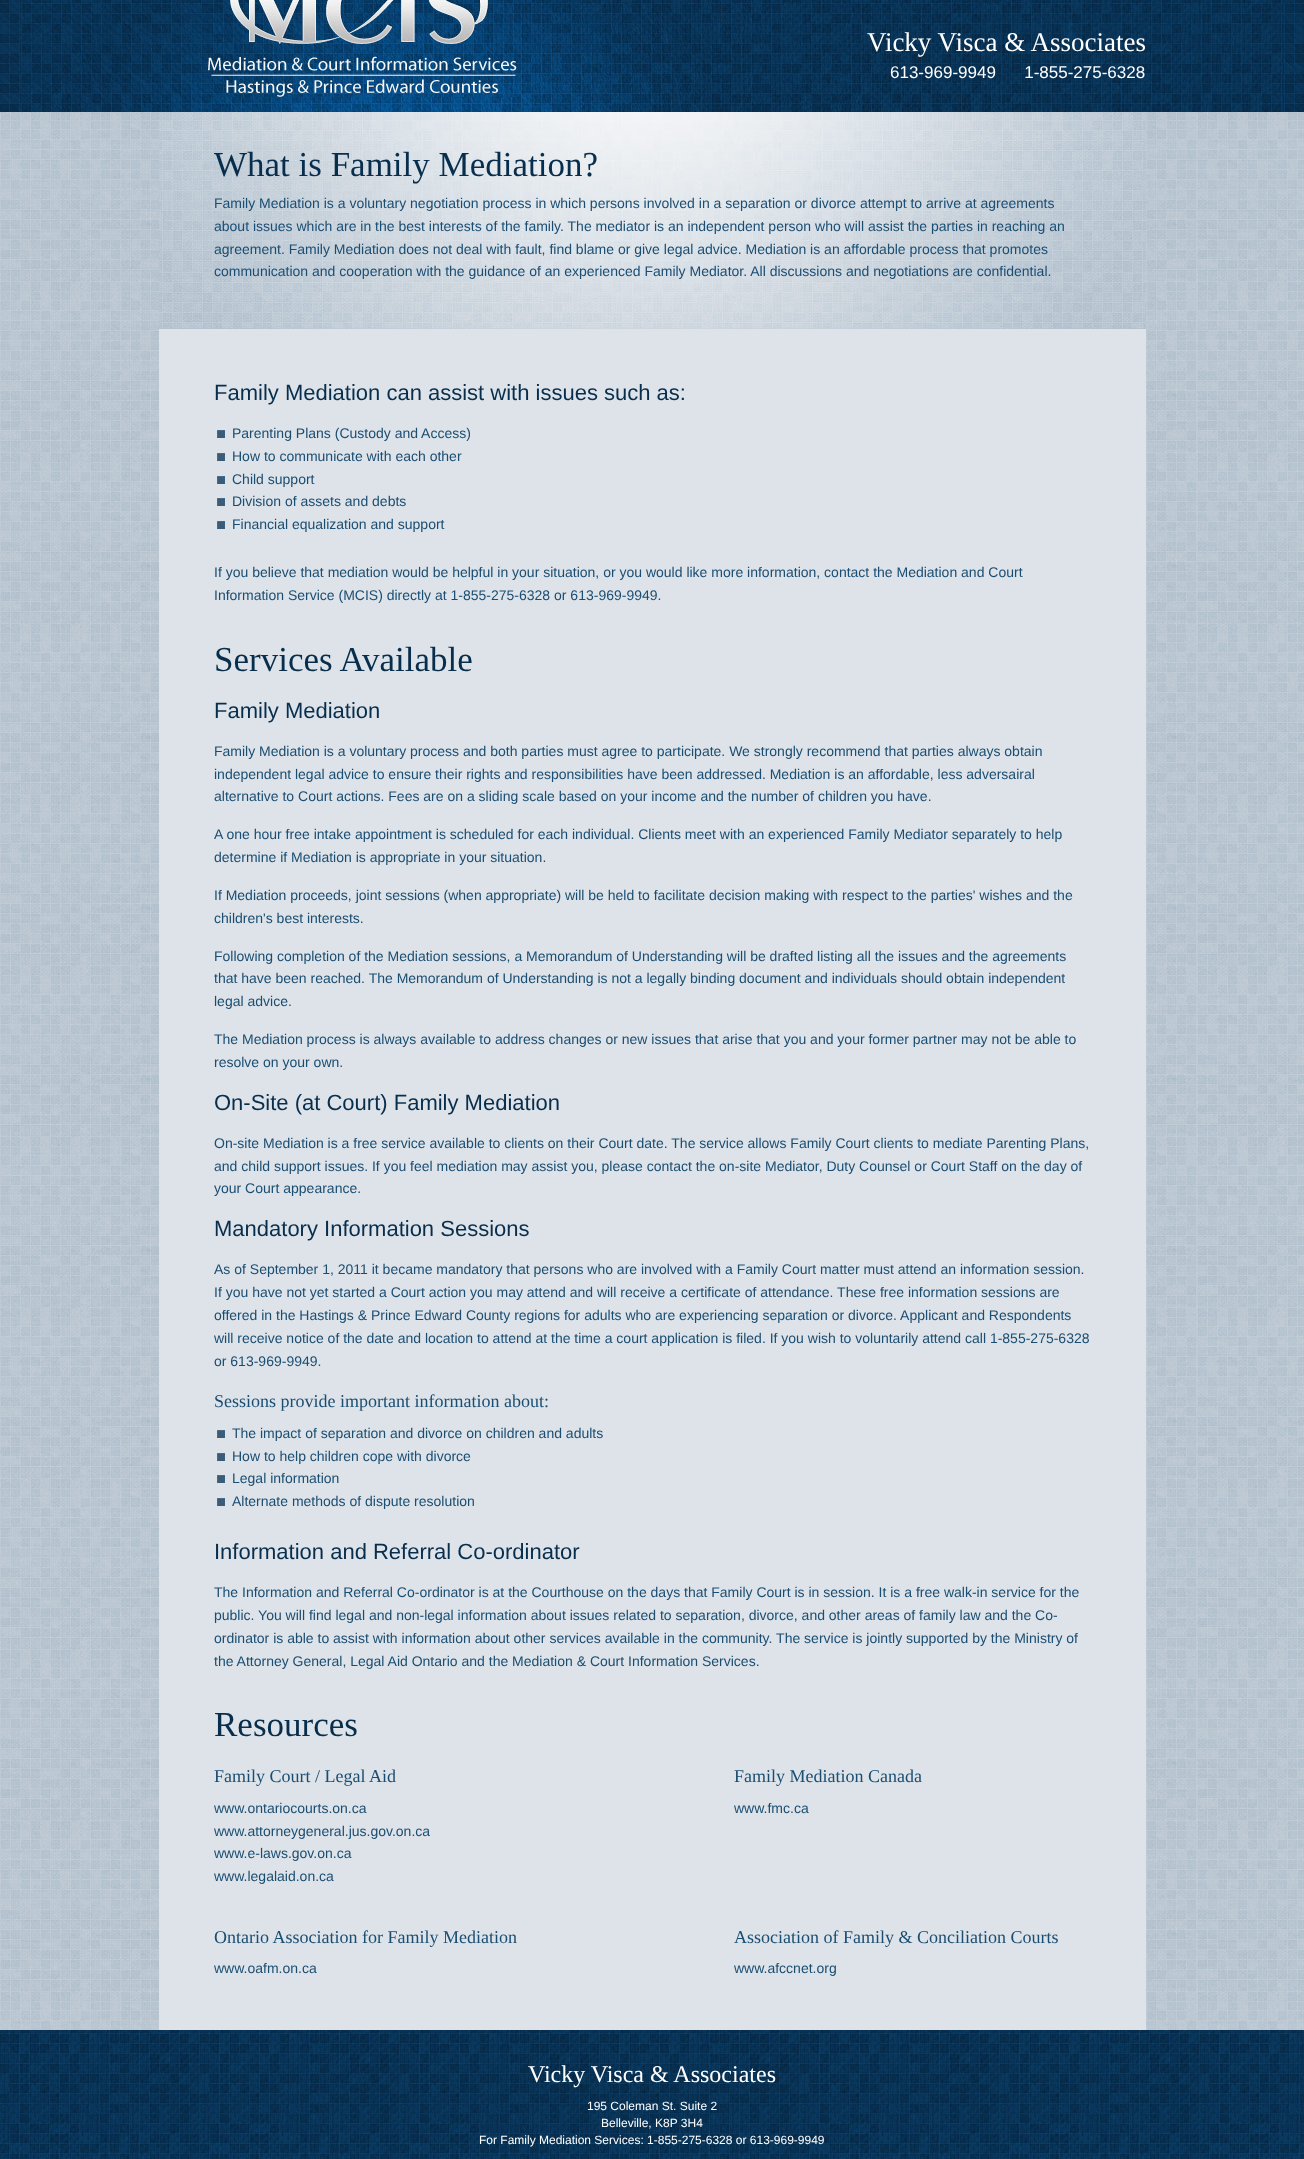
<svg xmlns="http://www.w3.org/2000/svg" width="1304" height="2159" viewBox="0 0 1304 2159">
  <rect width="100%" height="100%" fill="#fff"/>
  <image x="0" y="112" width="1304" height="1918" href="img/1.png"/>
  <image x="0" y="0" width="1304" height="112" href="img/2.png"/>
  <image x="21" y="0" width="1262" height="112" href="img/3.png"/>
  <image x="205" y="0" width="315" height="97" href="img/4.png"/>
  <path d="M159 329h987v1701H159z" fill="#dde3e8"/>
  <image x="159" y="112" width="987" height="217" href="img/5.png"/>
  <image x="217" y="430" width="8" height="8" href="img/6.png"/>
  <image x="217" y="453" width="8" height="8" href="img/6.png"/>
  <image x="217" y="476" width="8" height="8" href="img/6.png"/>
  <image x="217" y="498" width="8" height="8" href="img/6.png"/>
  <image x="217" y="521" width="8" height="8" href="img/6.png"/>
  <image x="217" y="1430" width="8" height="8" href="img/6.png"/>
  <image x="217" y="1453" width="8" height="8" href="img/6.png"/>
  <image x="217" y="1475" width="8" height="8" href="img/6.png"/>
  <image x="217" y="1498" width="8" height="8" href="img/6.png"/>
  <image x="0" y="2030" width="1304" height="129" href="img/7.png"/>
  <text x="867" y="51" font-family="Liberation Serif" font-size="27" fill="#fff">Vicky Visca &amp; Associates</text>
  <text x="890" y="78" font-family="Liberation Sans" font-size="17" fill="#fff" xml:space="preserve">613-969-9949      1-855-275-6328</text>
  <text x="214" y="176" font-family="Liberation Serif" font-size="35" fill="#082e4d">What is Family Mediation?</text>
  <g font-family="Liberation Sans" font-size="14" fill="#1a4d72">
    <text x="214" y="208">Family Mediation is a voluntary negotiation process in which persons involved in a separation or divorce attempt to arrive at agreements</text>
    <text x="214" y="231">about issues which are in the best interests of the family. The mediator is an independent person who will assist the parties in reaching an</text>
    <text x="214" y="254">agreement. Family Mediation does not deal with fault, find blame or give legal advice. Mediation is an affordable process that promotes</text>
    <text x="214" y="276">communication and cooperation with the guidance of an experienced Family Mediator. All discussions and negotiations are confidential.</text>
  </g>
  <text x="214" y="400" font-family="Liberation Sans" font-size="22" fill="#082e4d">Family Mediation can assist with issues such as:</text>
  <g font-family="Liberation Sans" font-size="14" fill="#1a4d72">
    <text x="232" y="438">Parenting Plans (Custody and Access)</text>
    <text x="232" y="461">How to communicate with each other</text>
    <text x="232" y="484">Child support</text>
    <text x="232" y="506">Division of assets and debts</text>
    <text x="232" y="529">Financial equalization and support</text>
    <text x="214" y="577">If you believe that mediation would be helpful in your situation, or you would like more information, contact the Mediation and Court</text>
    <text x="214" y="600">Information Service (MCIS) directly at 1-855-275-6328 or 613-969-9949.</text>
  </g>
  <text x="214" y="671" font-family="Liberation Serif" font-size="35" fill="#082e4d">Services Available</text>
  <text x="214" y="718" font-family="Liberation Sans" font-size="22" fill="#082e4d">Family Mediation</text>
  <g font-family="Liberation Sans" font-size="14" fill="#1a4d72">
    <text x="214" y="756">Family Mediation is a voluntary process and both parties must agree to participate. We strongly recommend that parties always obtain</text>
    <text x="214" y="779">independent legal advice to ensure their rights and responsibilities have been addressed. Mediation is an affordable, less adversairal</text>
    <text x="214" y="801">alternative to Court actions. Fees are on a sliding scale based on your income and the number of children you have.</text>
    <text x="214" y="839">A one hour free intake appointment is scheduled for each individual. Clients meet with an experienced Family Mediator separately to help</text>
    <text x="214" y="862">determine if Mediation is appropriate in your situation.</text>
    <text x="214" y="900">If Mediation proceeds, joint sessions (when appropriate) will be held to facilitate decision making with respect to the parties' wishes and the</text>
    <text x="214" y="923">children's best interests.</text>
    <text x="214" y="961">Following completion of the Mediation sessions, a Memorandum of Understanding will be drafted listing all the issues and the agreements</text>
    <text x="214" y="983">that have been reached. The Memorandum of Understanding is not a legally binding document and individuals should obtain independent</text>
    <text x="214" y="1006">legal advice.</text>
    <text x="214" y="1044">The Mediation process is always available to address changes or new issues that arise that you and your former partner may not be able to</text>
    <text x="214" y="1067">resolve on your own.</text>
  </g>
  <text x="214" y="1110" font-family="Liberation Sans" font-size="22" fill="#082e4d">On-Site (at Court) Family Mediation</text>
  <g font-family="Liberation Sans" font-size="14" fill="#1a4d72">
    <text x="214" y="1148">On-site Mediation is a free service available to clients on their Court date. The service allows Family Court clients to mediate Parenting Plans,</text>
    <text x="214" y="1171">and child support issues. If you feel mediation may assist you, please contact the on-site Mediator, Duty Counsel or Court Staff on the day of</text>
    <text x="214" y="1193">your Court appearance.</text>
  </g>
  <text x="214" y="1236" font-family="Liberation Sans" font-size="22" fill="#082e4d">Mandatory Information Sessions</text>
  <g font-family="Liberation Sans" font-size="14" fill="#1a4d72">
    <text x="214" y="1274">As of September 1, 2011 it became mandatory that persons who are involved with a Family Court matter must attend an information session.</text>
    <text x="214" y="1297">If you have not yet started a Court action you may attend and will receive a certificate of attendance. These free information sessions are</text>
    <text x="214" y="1320">offered in the Hastings &amp; Prince Edward County regions for adults who are experiencing separation or divorce. Applicant and Respondents</text>
    <text x="214" y="1343">will receive notice of the date and location to attend at the time a court application is filed. If you wish to voluntarily attend call 1-855-275-6328</text>
    <text x="214" y="1366">or 613-969-9949.</text>
  </g>
  <text x="214" y="1407" font-family="Liberation Serif" font-size="18" fill="#1a4d72">Sessions provide important information about:</text>
  <g font-family="Liberation Sans" font-size="14" fill="#1a4d72">
    <text x="232" y="1438">The impact of separation and divorce on children and adults</text>
    <text x="232" y="1461">How to help children cope with divorce</text>
    <text x="232" y="1483">Legal information</text>
    <text x="232" y="1506">Alternate methods of dispute resolution</text>
  </g>
  <text x="214" y="1559" font-family="Liberation Sans" font-size="22" fill="#082e4d">Information and Referral Co-ordinator</text>
  <g font-family="Liberation Sans" font-size="14" fill="#1a4d72">
    <text x="214" y="1597">The Information and Referral Co-ordinator is at the Courthouse on the days that Family Court is in session. It is a free walk-in service for the</text>
    <text x="214" y="1620">public. You will find legal and non-legal information about issues related to separation, divorce, and other areas of family law and the Co-</text>
    <text x="214" y="1643">ordinator is able to assist with information about other services available in the community. The service is jointly supported by the Ministry of</text>
    <text x="214" y="1666">the Attorney General, Legal Aid Ontario and the Mediation &amp; Court Information Services.</text>
  </g>
  <text x="214" y="1736" font-family="Liberation Serif" font-size="35" fill="#082e4d">Resources</text>
  <text x="214" y="1782" font-family="Liberation Serif" font-size="18" fill="#1a4d72">Family Court / Legal Aid</text>
  <g font-family="Liberation Sans" font-size="14" fill="#1a4d72">
    <text x="214" y="1813">www.ontariocourts.on.ca</text>
    <text x="214" y="1836">www.attorneygeneral.jus.gov.on.ca</text>
    <text x="214" y="1858">www.e-laws.gov.on.ca</text>
    <text x="214" y="1881">www.legalaid.on.ca</text>
  </g>
  <text x="734" y="1782" font-family="Liberation Serif" font-size="18" fill="#1a4d72">Family Mediation Canada</text>
  <text x="734" y="1813" font-family="Liberation Sans" font-size="14" fill="#1a4d72">www.fmc.ca</text>
  <text x="214" y="1943" font-family="Liberation Serif" font-size="18" fill="#1a4d72">Ontario Association for Family Mediation</text>
  <text x="214" y="1973" font-family="Liberation Sans" font-size="14" fill="#1a4d72">www.oafm.on.ca</text>
  <text x="734" y="1943" font-family="Liberation Serif" font-size="18" fill="#1a4d72">Association of Family &amp; Conciliation Courts</text>
  <text x="734" y="1973" font-family="Liberation Sans" font-size="14" fill="#1a4d72">www.afccnet.org</text>
  <text x="528" y="2082" font-family="Liberation Serif" font-size="24" fill="#fff">Vicky Visca &amp; Associates</text>
  <g font-family="Liberation Sans" font-size="12" fill="#fff">
    <text x="587" y="2110">195 Coleman St. Suite 2</text>
    <text x="601" y="2127">Belleville, K8P 3H4</text>
    <text x="479" y="2144">For Family Mediation Services: 1-855-275-6328 or 613-969-9949</text>
  </g>
</svg>
